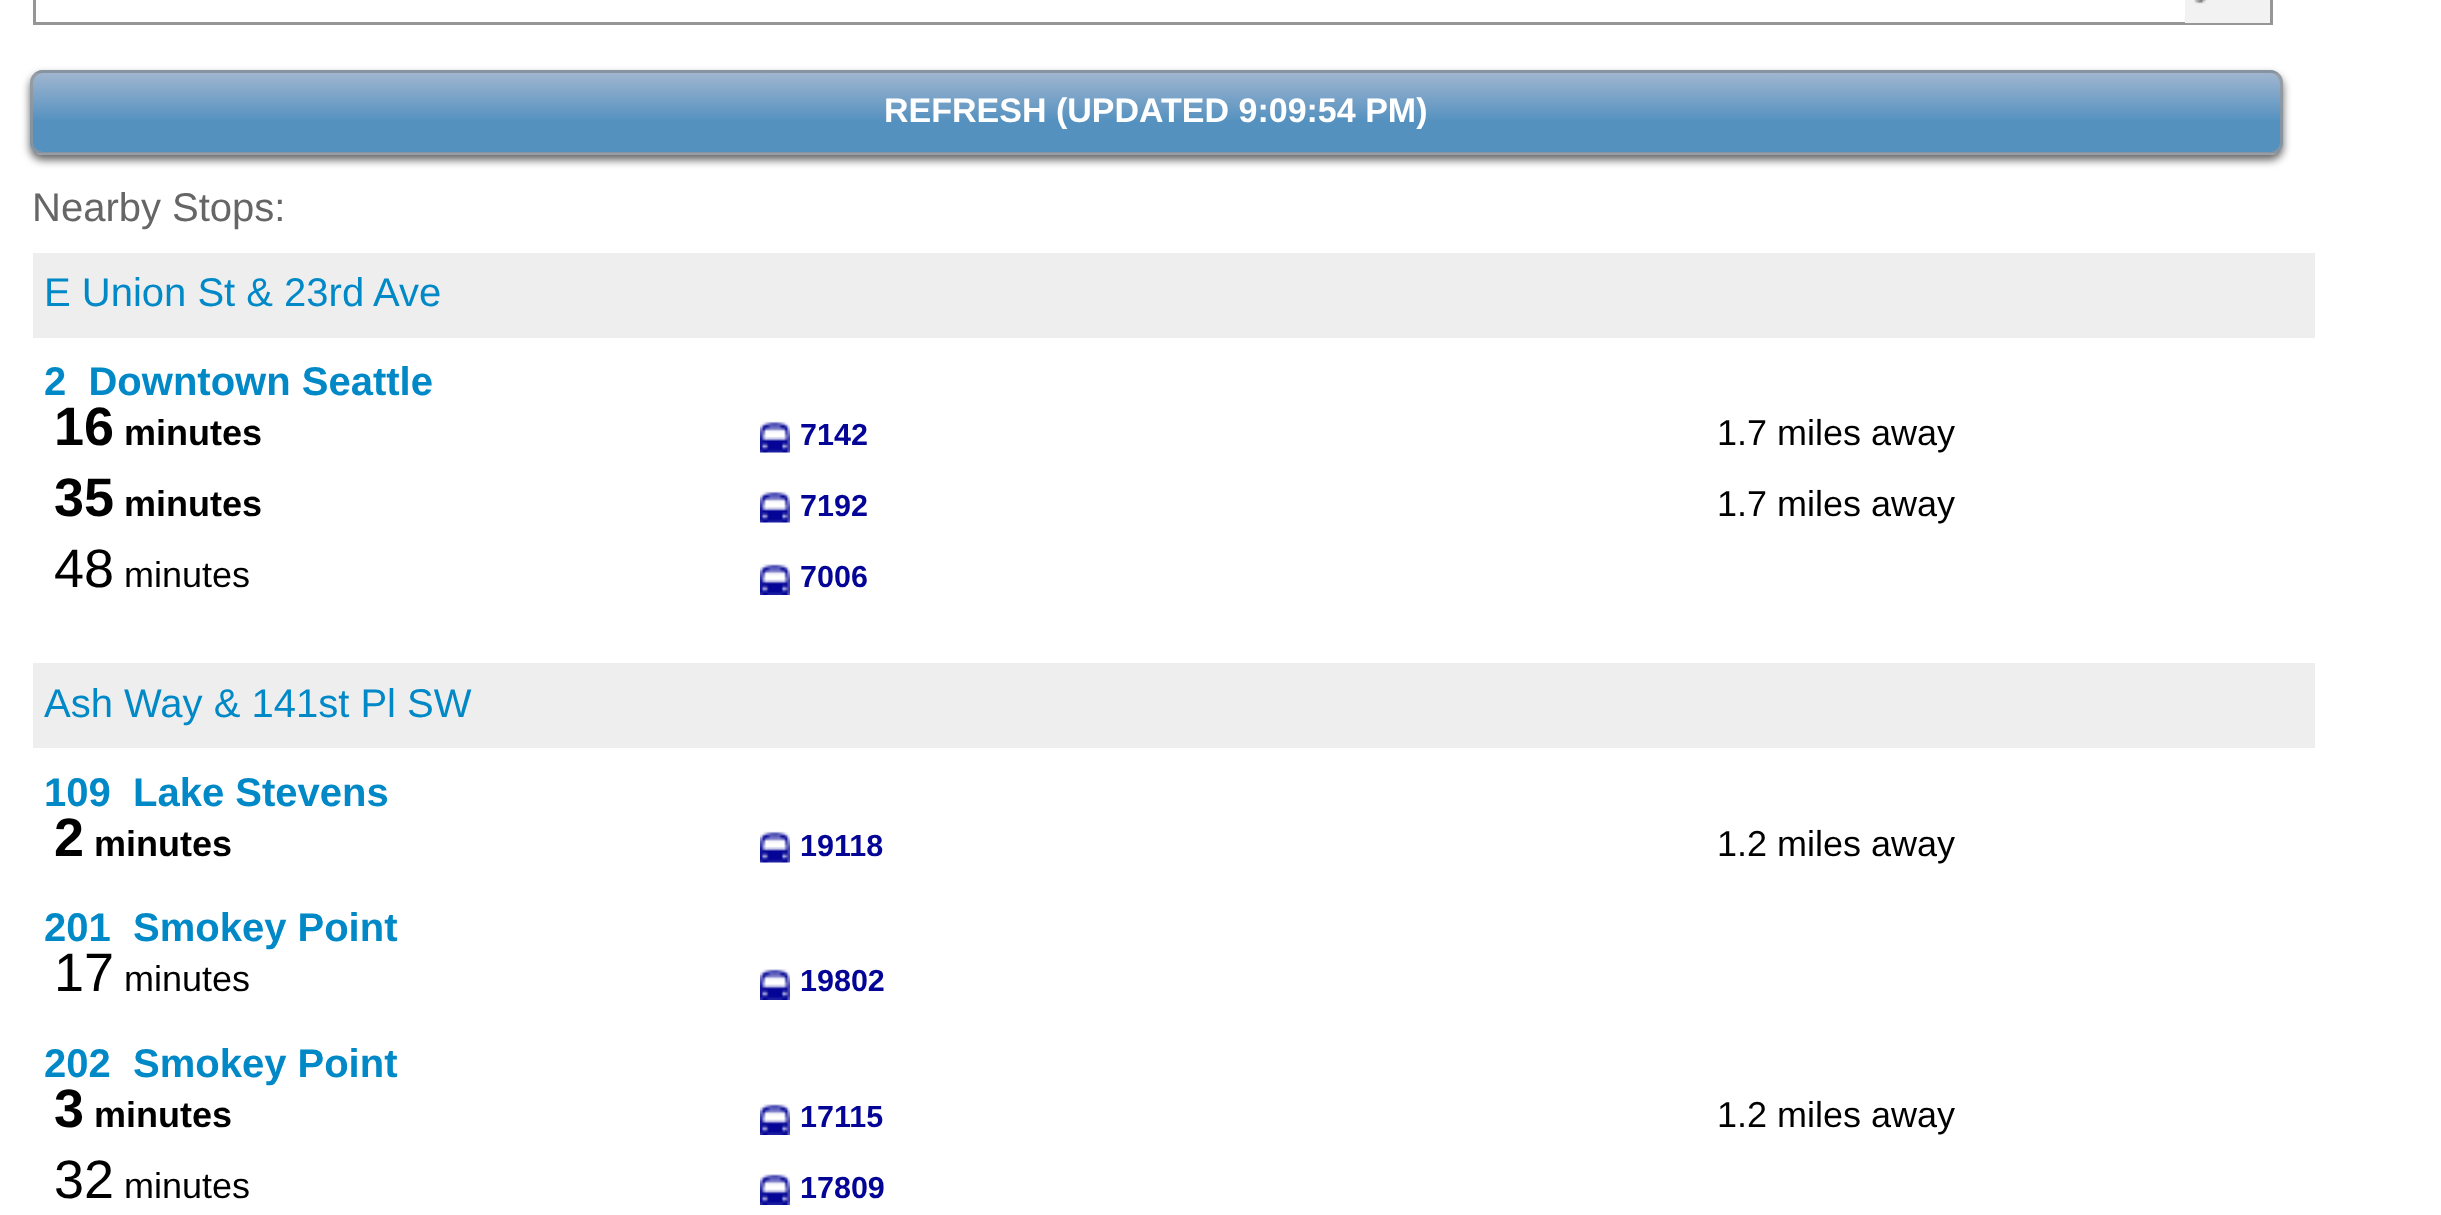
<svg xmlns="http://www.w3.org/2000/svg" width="2441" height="1215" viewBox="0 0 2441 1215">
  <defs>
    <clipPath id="clip1"><path d="M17 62H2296V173H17ZM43 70H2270C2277 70 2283 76 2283 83V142C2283 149 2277 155 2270 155H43C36 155 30 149 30 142V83C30 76 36 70 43 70Z" clip-rule="evenodd"/></clipPath>
    <clipPath id="clip2"><rect x="30" y="70" width="2253" height="85" rx="13"/></clipPath>
    <linearGradient id="g1" gradientUnits="userSpaceOnUse" x1="1156" y1="-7.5" x2="1156" y2="73"><stop offset="0" stop-color="#7594ba" stop-opacity="0.68"/><stop offset="0.61" stop-color="#005ba0" stop-opacity="0.67"/></linearGradient>
    <linearGradient id="g2" gradientUnits="userSpaceOnUse" x1="1156" y1="72" x2="1156" y2="153"><stop offset="0" stop-color="#7594ba" stop-opacity="0.68"/><stop offset="0.61" stop-color="#005ba0" stop-opacity="0.67"/></linearGradient>
    <linearGradient id="g3" gradientUnits="userSpaceOnUse" x1="1156" y1="152" x2="1156" y2="233"><stop offset="0" stop-color="#7594ba" stop-opacity="0.68"/><stop offset="0.61" stop-color="#005ba0" stop-opacity="0.67"/></linearGradient>
  </defs>
  <rect width="100%" height="100%" fill="#fff"/>
  <path d="M34.5 -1.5h2237v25H34.5z" fill="none" stroke="#969696" stroke-width="3"/>
  <path d="M2185 0h85v23H2185z" fill="#f2f2f2"/>
  <image x="2194" y="0" width="14" height="4" href="img/1.png"/>
  <g clip-path="url(#clip1)">
    <rect x="30" y="75" width="2253" height="85" rx="13" fill="#646464" filter="blur(4px)"/>
  </g>
  <g clip-path="url(#clip2)">
    <path d="M30 70h2253v3H30z" fill="url(#g1)"/>
    <path d="M30 73h2253v80H30z" fill="url(#g2)"/>
    <path d="M30 153h2253v2H30z" fill="url(#g3)"/>
  </g>
  <rect x="31.5" y="71.5" width="2250" height="82" rx="11.5" fill="none" stroke="#969696bf" stroke-width="3"/>
  <path d="M33 253h2282v85H33z" fill="#eee"/>
  <image x="760" y="421" width="30" height="32" href="img/2.png"/>
  <image x="760" y="491" width="30" height="32" href="img/2.png"/>
  <image x="760" y="564" width="30" height="31" href="img/3.png"/>
  <path d="M33 663h2282v85H33z" fill="#eee"/>
  <image x="760" y="831" width="30" height="32" href="img/2.png"/>
  <image x="760" y="969" width="30" height="31" href="img/3.png"/>
  <image x="760" y="1104" width="30" height="31" href="img/3.png"/>
  <image x="760" y="1174" width="30" height="31" href="img/3.png"/>
  <text x="884" y="122" font-family="Liberation Sans" font-size="34" font-weight="bold" fill="#fff">REFRESH (UPDATED 9:09:54 PM)</text>
  <text x="32" y="221" font-family="Liberation Sans" font-size="40" fill="#666">Nearby Stops:</text>
  <text x="44" y="306" font-family="Liberation Sans" font-size="40" fill="#0189c7">E Union St &amp; 23rd Ave</text>
  <text x="44" y="395" font-family="Liberation Sans" font-size="40" font-weight="bold" fill="#0189c7" xml:space="preserve">2  Downtown Seattle</text>
  <text x="54" y="445" font-family="Liberation Sans" font-size="54" font-weight="bold" fill="#000">16</text>
  <text x="124" y="445" font-family="Liberation Sans" font-size="36" font-weight="bold" fill="#000">minutes</text>
  <text x="800" y="445" font-family="Liberation Sans" font-size="30.5" font-weight="bold" fill="#040496">7142</text>
  <text x="1717" y="445" font-family="Liberation Sans" font-size="36" fill="#000">1.7 miles away</text>
  <text x="54" y="516" font-family="Liberation Sans" font-size="54" font-weight="bold" fill="#000">35</text>
  <text x="124" y="516" font-family="Liberation Sans" font-size="36" font-weight="bold" fill="#000">minutes</text>
  <text x="800" y="516" font-family="Liberation Sans" font-size="30.5" font-weight="bold" fill="#040496">7192</text>
  <text x="1717" y="516" font-family="Liberation Sans" font-size="36" fill="#000">1.7 miles away</text>
  <text x="54" y="587" font-family="Liberation Sans" font-size="54" fill="#000">48</text>
  <text x="124" y="587" font-family="Liberation Sans" font-size="36" fill="#000">minutes</text>
  <text x="800" y="587" font-family="Liberation Sans" font-size="30.5" font-weight="bold" fill="#040496">7006</text>
  <text x="44" y="717" font-family="Liberation Sans" font-size="40" fill="#0189c7">Ash Way &amp; 141st Pl SW</text>
  <text x="44" y="806" font-family="Liberation Sans" font-size="40" font-weight="bold" fill="#0189c7" xml:space="preserve">109  Lake Stevens</text>
  <text x="54" y="856" font-family="Liberation Sans" font-size="54" font-weight="bold" fill="#000">2</text>
  <text x="94" y="856" font-family="Liberation Sans" font-size="36" font-weight="bold" fill="#000">minutes</text>
  <text x="800" y="856" font-family="Liberation Sans" font-size="30.5" font-weight="bold" fill="#040496">19118</text>
  <text x="1717" y="856" font-family="Liberation Sans" font-size="36" fill="#000">1.2 miles away</text>
  <text x="44" y="941" font-family="Liberation Sans" font-size="40" font-weight="bold" fill="#0189c7" xml:space="preserve">201  Smokey Point</text>
  <text x="54" y="991" font-family="Liberation Sans" font-size="54" fill="#000">17</text>
  <text x="124" y="991" font-family="Liberation Sans" font-size="36" fill="#000">minutes</text>
  <text x="800" y="991" font-family="Liberation Sans" font-size="30.5" font-weight="bold" fill="#040496">19802</text>
  <text x="44" y="1077" font-family="Liberation Sans" font-size="40" font-weight="bold" fill="#0189c7" xml:space="preserve">202  Smokey Point</text>
  <text x="54" y="1127" font-family="Liberation Sans" font-size="54" font-weight="bold" fill="#000">3</text>
  <text x="94" y="1127" font-family="Liberation Sans" font-size="36" font-weight="bold" fill="#000">minutes</text>
  <text x="800" y="1127" font-family="Liberation Sans" font-size="30.5" font-weight="bold" fill="#040496">17115</text>
  <text x="1717" y="1127" font-family="Liberation Sans" font-size="36" fill="#000">1.2 miles away</text>
  <text x="54" y="1198" font-family="Liberation Sans" font-size="54" fill="#000">32</text>
  <text x="124" y="1198" font-family="Liberation Sans" font-size="36" fill="#000">minutes</text>
  <text x="800" y="1198" font-family="Liberation Sans" font-size="30.5" font-weight="bold" fill="#040496">17809</text>
</svg>
